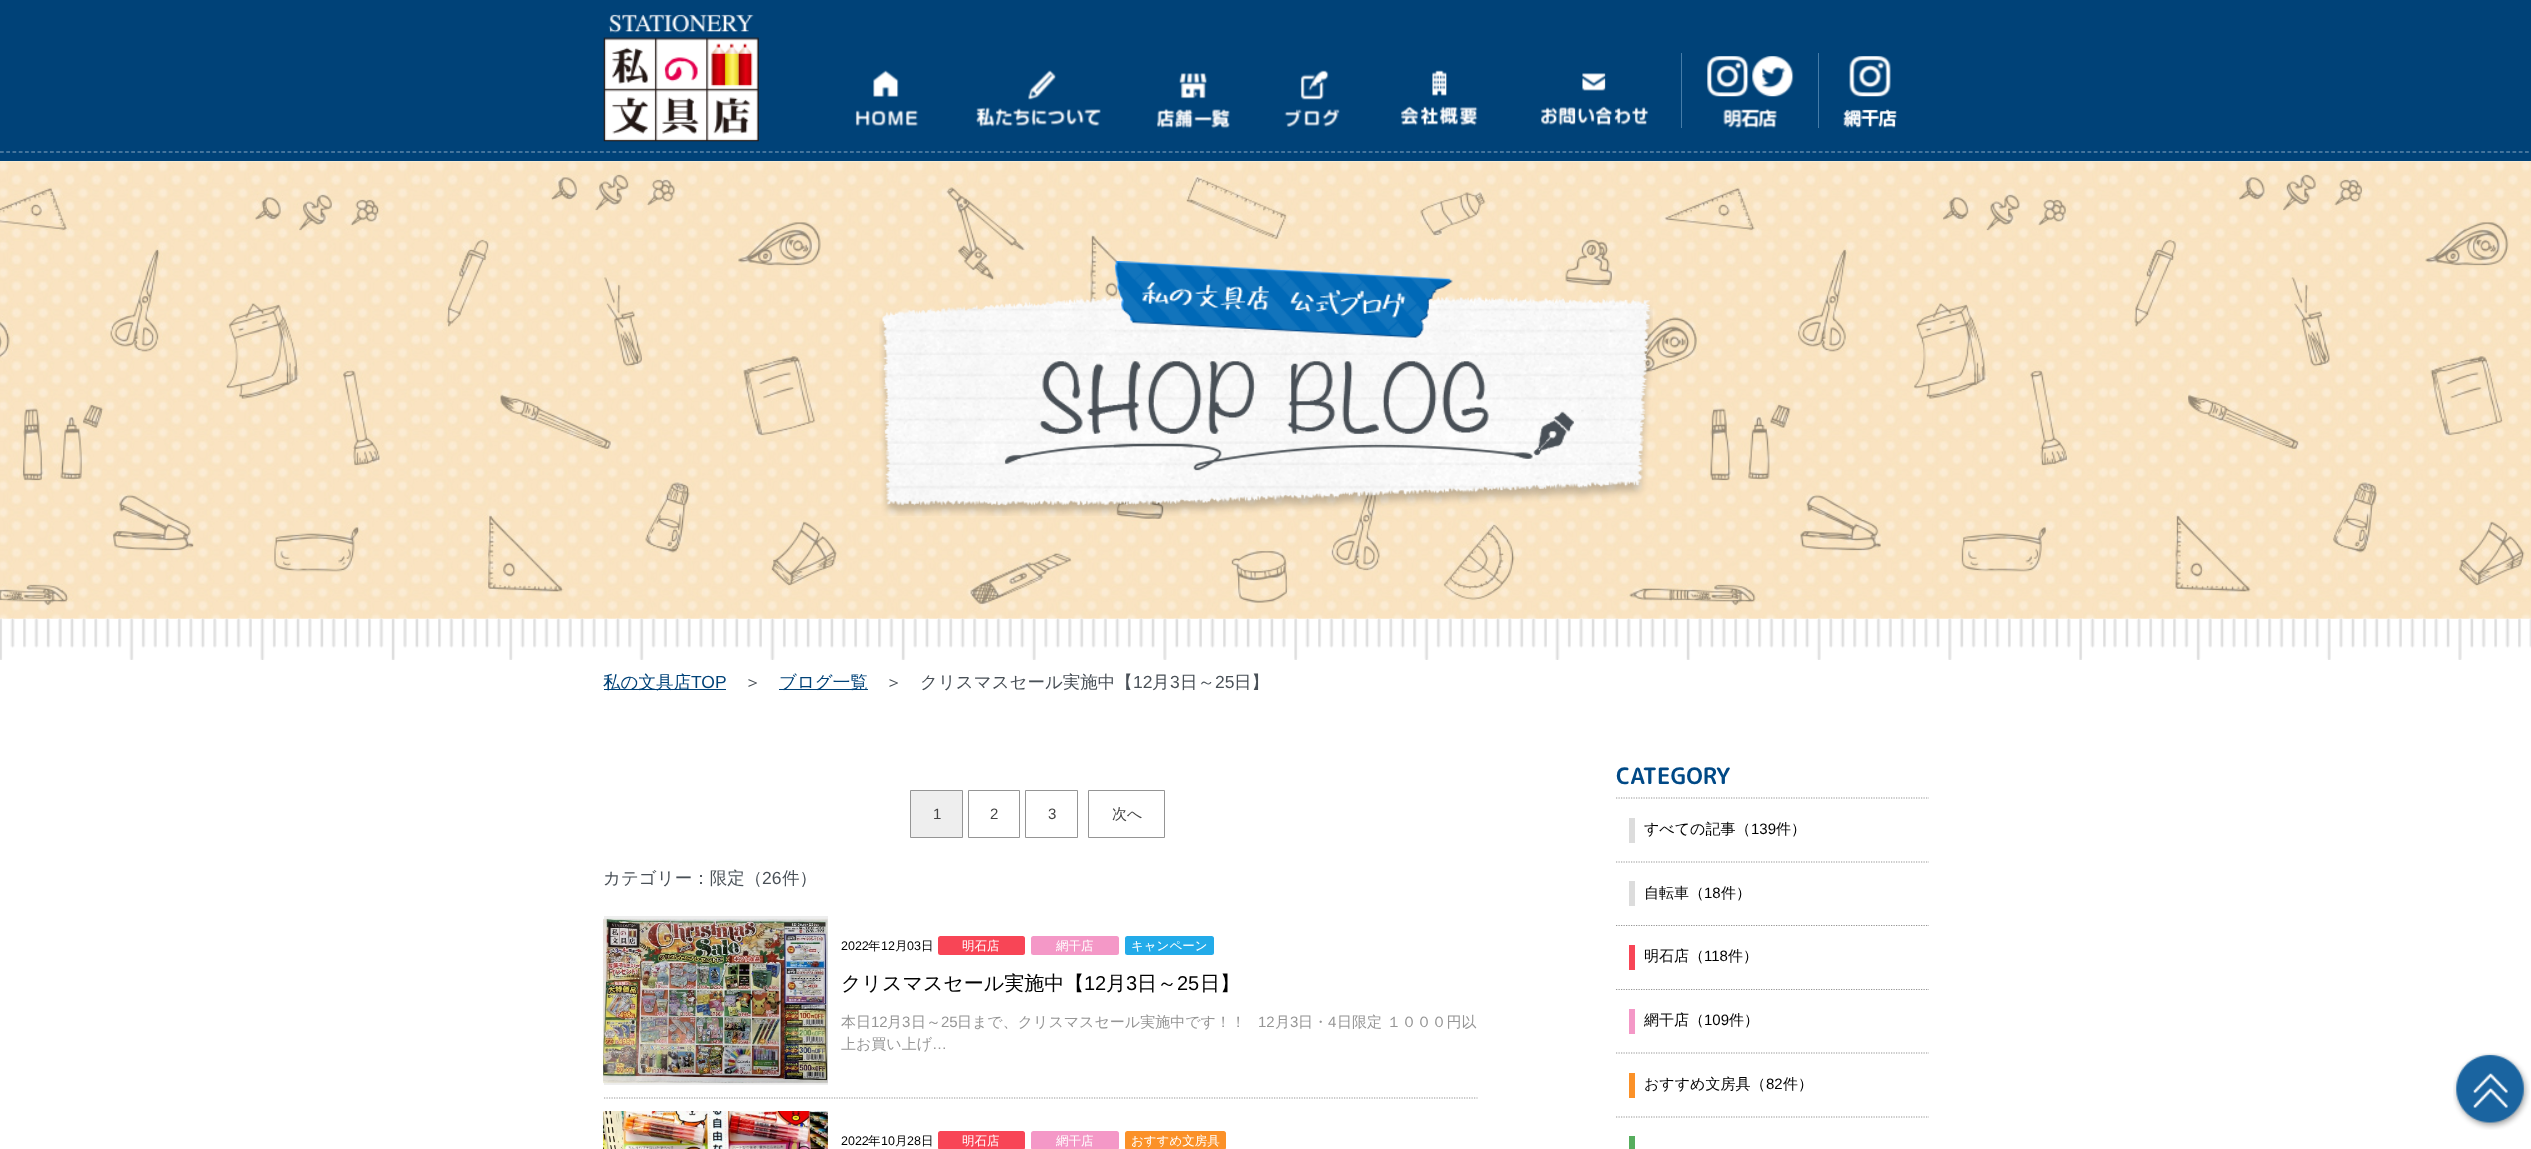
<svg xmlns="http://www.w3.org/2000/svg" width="2531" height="1149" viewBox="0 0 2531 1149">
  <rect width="100%" height="100%" fill="#fff"/>
  <path d="M0 0h2531v161H0z" fill="#004278"/>
  <image x="603" y="14" width="156" height="128" href="img/1.png"/>
  <image x="855" y="70" width="64" height="56" href="img/2.png"/>
  <image x="976" y="70" width="125" height="57" href="img/3.png"/>
  <image x="1156" y="73" width="74" height="56" href="img/4.png"/>
  <image x="1284" y="70" width="56" height="57" href="img/5.png"/>
  <image x="1401" y="70" width="77" height="56" href="img/6.png"/>
  <image x="1541" y="73" width="108" height="53" href="img/7.png"/>
  <path d="M1681 53h1v75H1681z" fill="#467ca8"/>
  <image x="1707" y="56" width="42" height="41" href="img/8.png"/>
  <image x="1752" y="56" width="42" height="41" href="img/9.png"/>
  <image x="1723" y="108" width="54" height="21" href="img/10.png"/>
  <path d="M1818 53h1v75H1818z" fill="#467ca8"/>
  <image x="1849" y="56" width="42" height="41" href="img/11.png"/>
  <image x="1843" y="108" width="54" height="20" href="img/12.png"/>
  <path d="M0 152H2531" fill="none" stroke="#87a6bf" stroke-width="1.2" stroke-dasharray="3.75 2.5"/>
  <image x="0" y="161" width="2531" height="458" href="img/13.png"/>
  <image x="879" y="261" width="774" height="255" href="img/14.png"/>
  <image x="0" y="618" width="2531" height="42" href="img/15.png"/>
  <path d="M604 689h122v1H604z" fill="#004278"/>
  <path d="M779 689h89v1H779z" fill="#004278"/>
  <path d="M910.5 790.5h52v47H910.5z" fill="#eee" stroke="#959595"/>
  <path d="M968.5 790.5h51v47H968.5z" fill="none" stroke="#959595"/>
  <path d="M1025.5 790.5h52v47H1025.5z" fill="none" stroke="#959595"/>
  <path d="M1088.5 790.5h76v47H1088.5z" fill="none" stroke="#959595"/>
  <path d="M604 1098H1477.5" fill="none" stroke="#959595" stroke-width="1.2" stroke-dasharray="1.25 1.25"/>
  <path d="M604 916h224v169H604z" fill="#eee"/>
  <image x="603" y="918" width="225" height="166" href="img/16.png"/>
  <rect x="938" y="936" width="87" height="19" rx="2.5" fill="#f84556"/>
  <rect x="1031" y="936" width="88" height="19" rx="2.5" fill="#f498c7"/>
  <rect x="1125" y="936" width="89" height="19" rx="2.5" fill="#23abe9"/>
  <image x="603" y="1111" width="225" height="38" href="img/17.png"/>
  <rect x="938" y="1131" width="87" height="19" rx="2.5" fill="#f84556"/>
  <rect x="1031" y="1131" width="88" height="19" rx="2.5" fill="#f498c7"/>
  <rect x="1125" y="1131" width="101" height="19" rx="2.5" fill="#fb9128"/>
  <path d="M1616 798H1929" fill="none" stroke="#959595" stroke-width="1.2" stroke-dasharray="1.25 1.25"/>
  <path d="M1616 862H1929" fill="none" stroke="#959595" stroke-width="1.2" stroke-dasharray="1.25 1.25"/>
  <path d="M1629 818h6v25H1629z" fill="#dcdcdc"/>
  <path d="M1616 925.5H1929" fill="none" stroke="#959595" stroke-width="1.2" stroke-dasharray="1.25 1.25"/>
  <path d="M1629 881h6v25H1629z" fill="#dcdcdc"/>
  <path d="M1616 989.5H1929" fill="none" stroke="#959595" stroke-width="1.2" stroke-dasharray="1.25 1.25"/>
  <path d="M1629 945h6v25H1629z" fill="#f84556"/>
  <path d="M1616 1053H1929" fill="none" stroke="#959595" stroke-width="1.2" stroke-dasharray="1.25 1.25"/>
  <path d="M1629 1009h6v25H1629z" fill="#f498c7"/>
  <path d="M1616 1117H1929" fill="none" stroke="#959595" stroke-width="1.2" stroke-dasharray="1.25 1.25"/>
  <path d="M1629 1073h6v25H1629z" fill="#fb9128"/>
  <path d="M1629 1136h6v13H1629z" fill="#56ad5d"/>
  <image x="2453" y="1053" width="77" height="77" href="img/18.png"/>
  <text x="603" y="688" font-family="WenQuanYi Zen Hei" font-size="17.5" font-weight="500" fill="#004278">私の文具店</text>
  <text x="691" y="688" font-family="Liberation Sans" font-size="17.5" fill="#004278">TOP</text>
  <text x="744" y="688" font-family="WenQuanYi Zen Hei" font-size="17.5" font-weight="500" fill="#495057">＞</text>
  <text x="779" y="688" font-family="WenQuanYi Zen Hei" font-size="17.5" font-weight="500" fill="#004278">ブログ一覧</text>
  <text x="885" y="688" font-family="WenQuanYi Zen Hei" font-size="17.5" font-weight="500" fill="#495057">＞　クリスマスセール実施中【</text>
  <text x="1133" y="688" font-family="Liberation Sans" font-size="17.5" fill="#495057">12</text>
  <text x="1152" y="688" font-family="WenQuanYi Zen Hei" font-size="17.5" font-weight="500" fill="#495057">月</text>
  <text x="1170" y="688" font-family="Liberation Sans" font-size="17.5" fill="#495057">3</text>
  <text x="1180" y="688" font-family="WenQuanYi Zen Hei" font-size="17.5" font-weight="500" fill="#495057">日～</text>
  <text x="1215" y="688" font-family="Liberation Sans" font-size="17.5" fill="#495057">25</text>
  <text x="1234" y="688" font-family="WenQuanYi Zen Hei" font-size="17.5" font-weight="500" fill="#495057">日】</text>
  <g font-family="Liberation Sans" font-size="15" fill="#434343">
    <text x="933" y="819">1</text>
    <text x="990" y="819">2</text>
    <text x="1048" y="819">3</text>
  </g>
  <text x="1112" y="819" font-family="WenQuanYi Zen Hei" font-size="15" font-weight="500" fill="#434343">次へ</text>
  <text x="603" y="884" font-family="WenQuanYi Zen Hei" font-size="17.5" font-weight="500" fill="#495057">カテゴリー：限定（</text>
  <text x="762" y="884" font-family="Liberation Sans" font-size="17.5" fill="#495057">26</text>
  <text x="782" y="884" font-family="WenQuanYi Zen Hei" font-size="17.5" font-weight="500" fill="#495057">件）</text>
  <text x="841" y="950" font-family="Liberation Sans" font-size="12.5" fill="#000">2022</text>
  <text x="868" y="950" font-family="WenQuanYi Zen Hei" font-size="12.5" font-weight="500" fill="#000">年</text>
  <text x="881" y="950" font-family="Liberation Sans" font-size="12.5" fill="#000">12</text>
  <text x="895" y="950" font-family="WenQuanYi Zen Hei" font-size="12.5" font-weight="500" fill="#000">月</text>
  <text x="907" y="950" font-family="Liberation Sans" font-size="12.5" fill="#000">03</text>
  <text x="921" y="950" font-family="WenQuanYi Zen Hei" font-size="12.5" font-weight="500" fill="#000">日</text>
  <g font-family="WenQuanYi Zen Hei" font-size="12.5" font-weight="500" fill="#fff">
    <text x="962" y="950">明石店</text>
    <text x="1056" y="950">網干店</text>
    <text x="1131" y="950">キャンペーン</text>
  </g>
  <text x="841" y="990" font-family="WenQuanYi Zen Hei" font-size="20" font-weight="500" fill="#000">クリスマスセール実施中【</text>
  <text x="1084" y="990" font-family="Liberation Sans" font-size="20" fill="#000">12</text>
  <text x="1106" y="990" font-family="WenQuanYi Zen Hei" font-size="20" font-weight="500" fill="#000">月</text>
  <text x="1126" y="990" font-family="Liberation Sans" font-size="20" fill="#000">3</text>
  <text x="1137" y="990" font-family="WenQuanYi Zen Hei" font-size="20" font-weight="500" fill="#000">日～</text>
  <text x="1177" y="990" font-family="Liberation Sans" font-size="20" fill="#000">25</text>
  <text x="1200" y="990" font-family="WenQuanYi Zen Hei" font-size="20" font-weight="500" fill="#000">日】</text>
  <text x="841" y="1027" font-family="WenQuanYi Zen Hei" font-size="15" font-weight="500" fill="#959595">本日</text>
  <text x="871" y="1027" font-family="Liberation Sans" font-size="15" fill="#959595">12</text>
  <text x="887" y="1027" font-family="WenQuanYi Zen Hei" font-size="15" font-weight="500" fill="#959595">月</text>
  <text x="902" y="1027" font-family="Liberation Sans" font-size="15" fill="#959595">3</text>
  <text x="911" y="1027" font-family="WenQuanYi Zen Hei" font-size="15" font-weight="500" fill="#959595">日～</text>
  <text x="941" y="1027" font-family="Liberation Sans" font-size="15" fill="#959595">25</text>
  <text x="957" y="1027" font-family="WenQuanYi Zen Hei" font-size="15" font-weight="500" fill="#959595">日まで、クリスマスセール実施中です！！</text>
  <text x="1258" y="1027" font-family="Liberation Sans" font-size="15" fill="#959595">12</text>
  <text x="1275" y="1027" font-family="WenQuanYi Zen Hei" font-size="15" font-weight="500" fill="#959595">月</text>
  <text x="1290" y="1027" font-family="Liberation Sans" font-size="15" fill="#959595">3</text>
  <text x="1298" y="1027" font-family="WenQuanYi Zen Hei" font-size="15" font-weight="500" fill="#959595">日・</text>
  <text x="1328" y="1027" font-family="Liberation Sans" font-size="15" fill="#959595">4</text>
  <g font-family="WenQuanYi Zen Hei" font-size="15" font-weight="500" fill="#959595">
    <text x="1337" y="1027">日限定 １０００円以</text>
    <text x="841" y="1049">上お買い上げ</text>
  </g>
  <text x="932" y="1049" font-family="Liberation Sans" font-size="15" fill="#959595">…</text>
  <text x="841" y="1145" font-family="Liberation Sans" font-size="12.5" fill="#000">2022</text>
  <text x="868" y="1145" font-family="WenQuanYi Zen Hei" font-size="12.5" font-weight="500" fill="#000">年</text>
  <text x="881" y="1145" font-family="Liberation Sans" font-size="12.5" fill="#000">10</text>
  <text x="895" y="1145" font-family="WenQuanYi Zen Hei" font-size="12.5" font-weight="500" fill="#000">月</text>
  <text x="907" y="1145" font-family="Liberation Sans" font-size="12.5" fill="#000">28</text>
  <text x="921" y="1145" font-family="WenQuanYi Zen Hei" font-size="12.5" font-weight="500" fill="#000">日</text>
  <g font-family="WenQuanYi Zen Hei" font-size="12.5" font-weight="500" fill="#fff">
    <text x="962" y="1145">明石店</text>
    <text x="1056" y="1145">網干店</text>
    <text x="1131" y="1145">おすすめ文房具</text>
  </g>
  <text x="1616" y="784" font-family="'Rounded Mplus 1c Bold'" font-size="22.5" font-weight="bold" fill="#004986">CATEGORY</text>
  <text x="1644" y="834" font-family="WenQuanYi Zen Hei" font-size="15" font-weight="500" fill="#000">すべての記事（</text>
  <text x="1751" y="834" font-family="Liberation Sans" font-size="15" fill="#000">139</text>
  <g font-family="WenQuanYi Zen Hei" font-size="15" font-weight="500" fill="#000">
    <text x="1776" y="834">件）</text>
    <text x="1644" y="898">自転車（</text>
  </g>
  <text x="1704" y="898" font-family="Liberation Sans" font-size="15" fill="#000">18</text>
  <g font-family="WenQuanYi Zen Hei" font-size="15" font-weight="500" fill="#000">
    <text x="1721" y="898">件）</text>
    <text x="1644" y="961">明石店（</text>
  </g>
  <text x="1704" y="961" font-family="Liberation Sans" font-size="15" fill="#000">118</text>
  <g font-family="WenQuanYi Zen Hei" font-size="15" font-weight="500" fill="#000">
    <text x="1728" y="961">件）</text>
    <text x="1644" y="1025">網干店（</text>
  </g>
  <text x="1704" y="1025" font-family="Liberation Sans" font-size="15" fill="#000">109</text>
  <g font-family="WenQuanYi Zen Hei" font-size="15" font-weight="500" fill="#000">
    <text x="1729" y="1025">件）</text>
    <text x="1644" y="1089">おすすめ文房具（</text>
  </g>
  <text x="1766" y="1089" font-family="Liberation Sans" font-size="15" fill="#000">82</text>
  <text x="1783" y="1089" font-family="WenQuanYi Zen Hei" font-size="15" font-weight="500" fill="#000">件）</text>
</svg>
